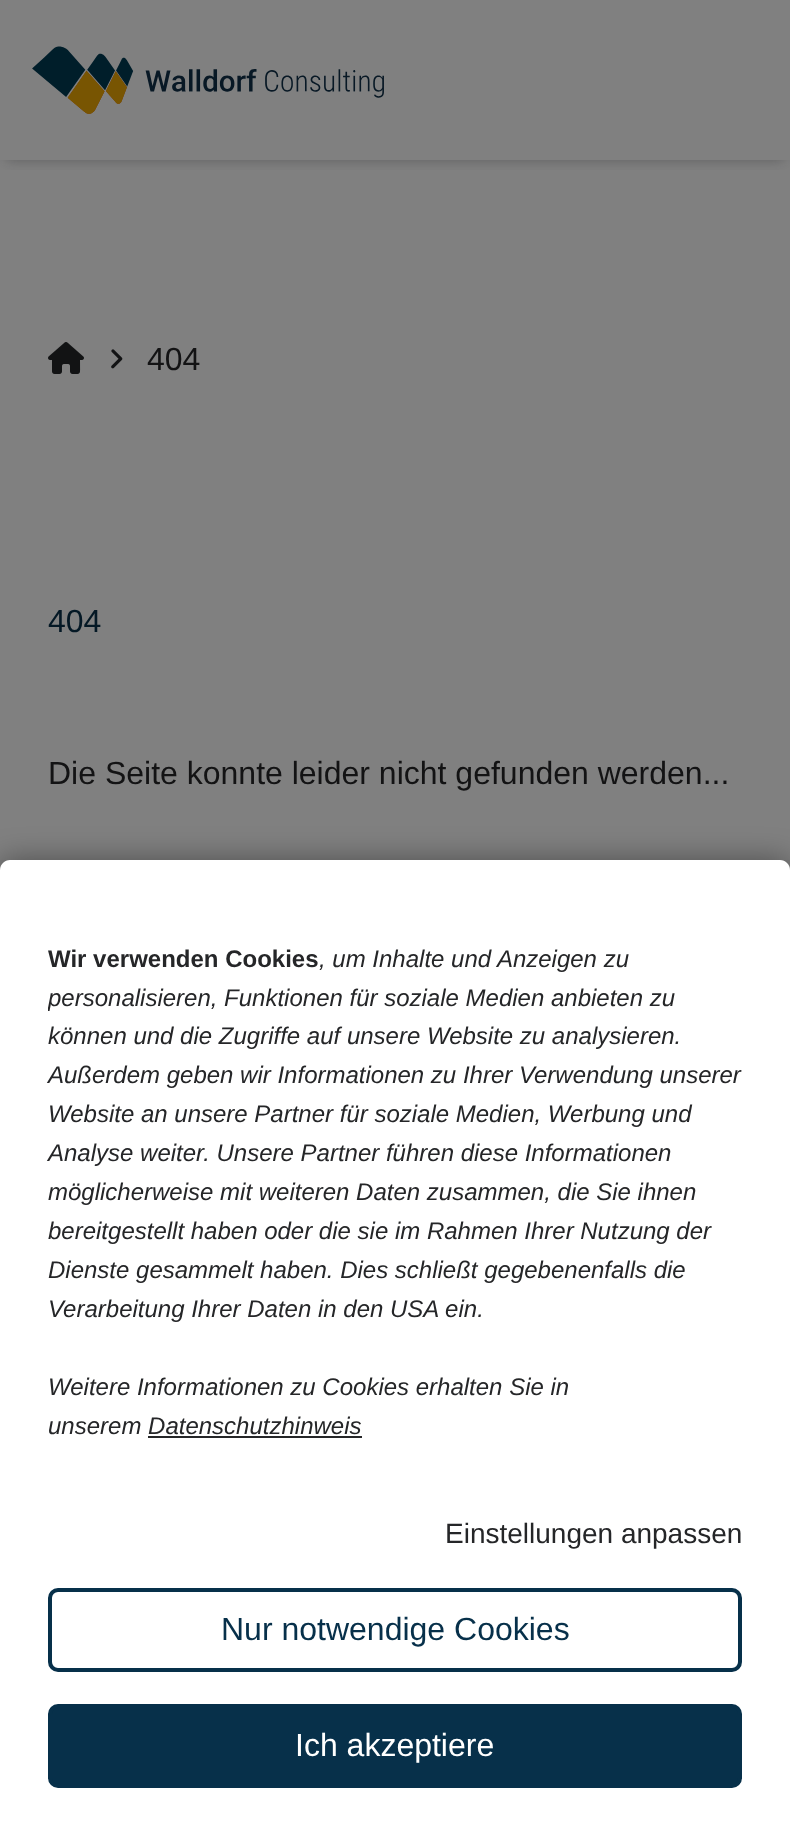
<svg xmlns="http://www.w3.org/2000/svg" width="790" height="1835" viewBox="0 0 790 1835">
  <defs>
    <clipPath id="clip1"><path d="M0 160h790v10H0z"/></clipPath>
    <clipPath id="clip2"><path d="M48 940h694v506H48z"/></clipPath>
  </defs>
  <rect width="100%" height="100%" fill="#808080"/>
  <g clip-path="url(#clip1)">
    <path d="M6 12h778v148H6z" fill="#1112134d" filter="blur(7px)"/>
  </g>
  <image x="32" y="46" width="352" height="68" href="img/1.png"/>
  <image x="48" y="342" width="36" height="32" href="img/2.png"/>
  <image x="111" y="349" width="12" height="20" href="img/3.png"/>
  <rect y="860" width="790" height="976" rx="10" fill="#00000066" filter="blur(15px)"/>
  <path d="M10 860H780C785.5 860 790 864.5 790 870V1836H0V870C0 864.5 4.5 860 10 860Z" fill="#fff"/>
  <path d="M148 1436h214v2H148z" fill="#252628"/>
  <rect x="50" y="1590" width="690" height="80" rx="8" fill="none" stroke="#07304a" stroke-width="4"/>
  <rect x="50" y="1706" width="690" height="80" rx="8" fill="#07304a" stroke="#07304a" stroke-width="4"/>
  <text x="147" y="370" font-family="Liberation Sans" font-size="32" fill="#131314">404</text>
  <text x="48" y="632" font-family="Liberation Sans" font-size="32" fill="#041825">404</text>
  <text x="48" y="784" font-family="Liberation Sans" font-size="32" fill="#131314">Die Seite konnte leider nicht gefunden werden...</text>
  <text x="48" y="967" font-family="Liberation Sans" font-size="24" font-weight="bold" fill="#252628">Wir verwenden Cookies</text>
  <text x="319" y="967" font-family="Liberation Sans" font-size="24" font-style="italic" fill="#252628">, um Inhalte und Anzeigen zu</text>
  <g clip-path="url(#clip2)">
    <text x="48" y="1006" font-family="Liberation Sans" font-size="24" font-style="italic" fill="#252628">personalisieren, Funktionen für soziale Medien anbieten zu</text>
  </g>
  <g font-family="Liberation Sans" font-size="24" font-style="italic" fill="#252628">
    <text x="48" y="1044">können und die Zugriffe auf unsere Website zu analysieren.</text>
    <text x="48" y="1083">Außerdem geben wir Informationen zu Ihrer Verwendung unserer</text>
    <text x="48" y="1122">Website an unsere Partner für soziale Medien, Werbung und</text>
    <text x="48" y="1161">Analyse weiter. Unsere Partner führen diese Informationen</text>
    <text x="48" y="1200">möglicherweise mit weiteren Daten zusammen, die Sie ihnen</text>
    <text x="48" y="1239">bereitgestellt haben oder die sie im Rahmen Ihrer Nutzung der</text>
    <text x="48" y="1278">Dienste gesammelt haben. Dies schließt gegebenenfalls die</text>
    <text x="48" y="1317">Verarbeitung Ihrer Daten in den USA ein.</text>
    <text x="48" y="1395">Weitere Informationen zu Cookies erhalten Sie in</text>
    <text x="48" y="1434">unserem Datenschutzhinweis</text>
  </g>
  <text x="445" y="1543" font-family="Liberation Sans" font-size="28" fill="#252628">Einstellungen anpassen</text>
  <text x="221" y="1640" font-family="Liberation Sans" font-size="32" fill="#07304a">Nur notwendige Cookies</text>
  <text x="295" y="1756" font-family="Liberation Sans" font-size="32" fill="#fff">Ich akzeptiere</text>
</svg>
